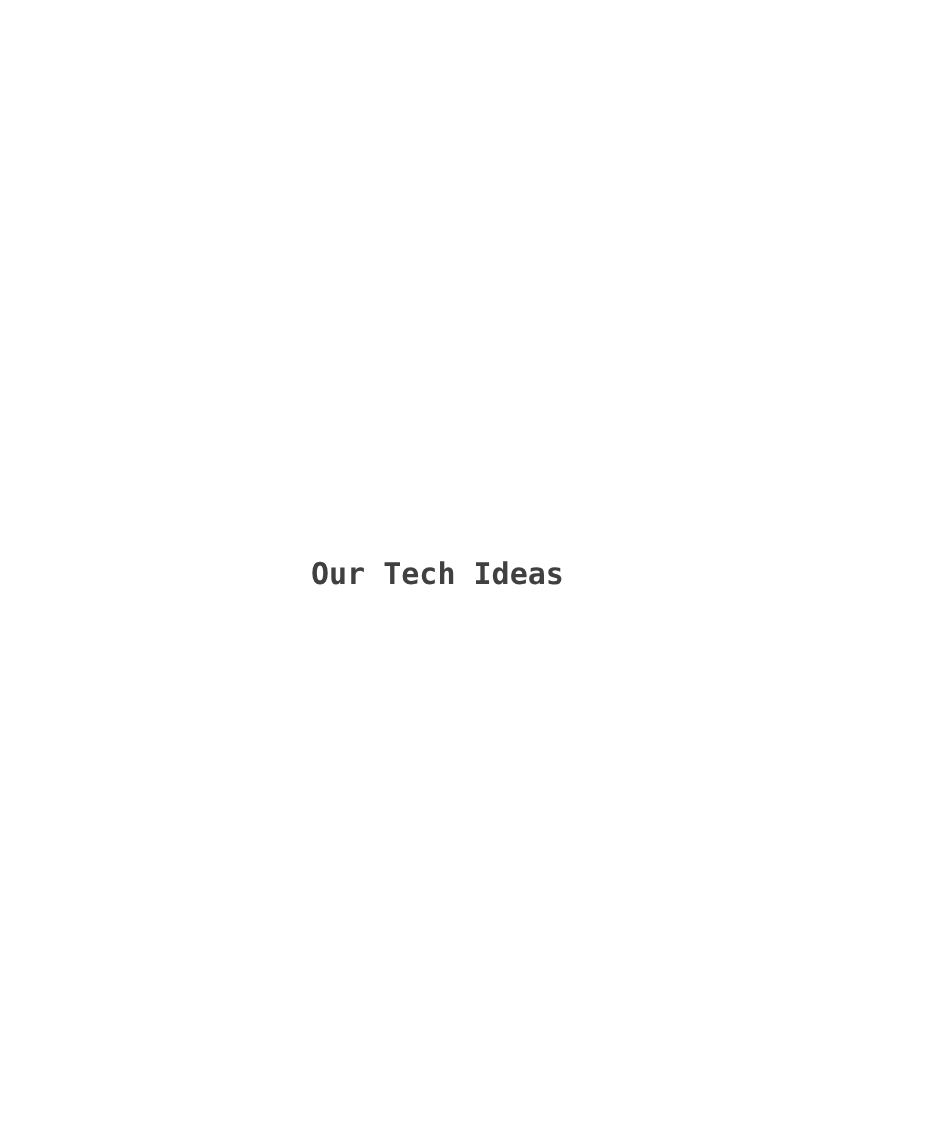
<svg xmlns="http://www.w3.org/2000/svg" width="929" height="1147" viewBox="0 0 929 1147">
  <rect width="100%" height="100%" fill="#fff"/>
  <text x="311" y="584" font-family="DejaVu Sans Mono" font-size="30" font-weight="bold" fill="#404040">Our Tech Ideas</text>
</svg>
